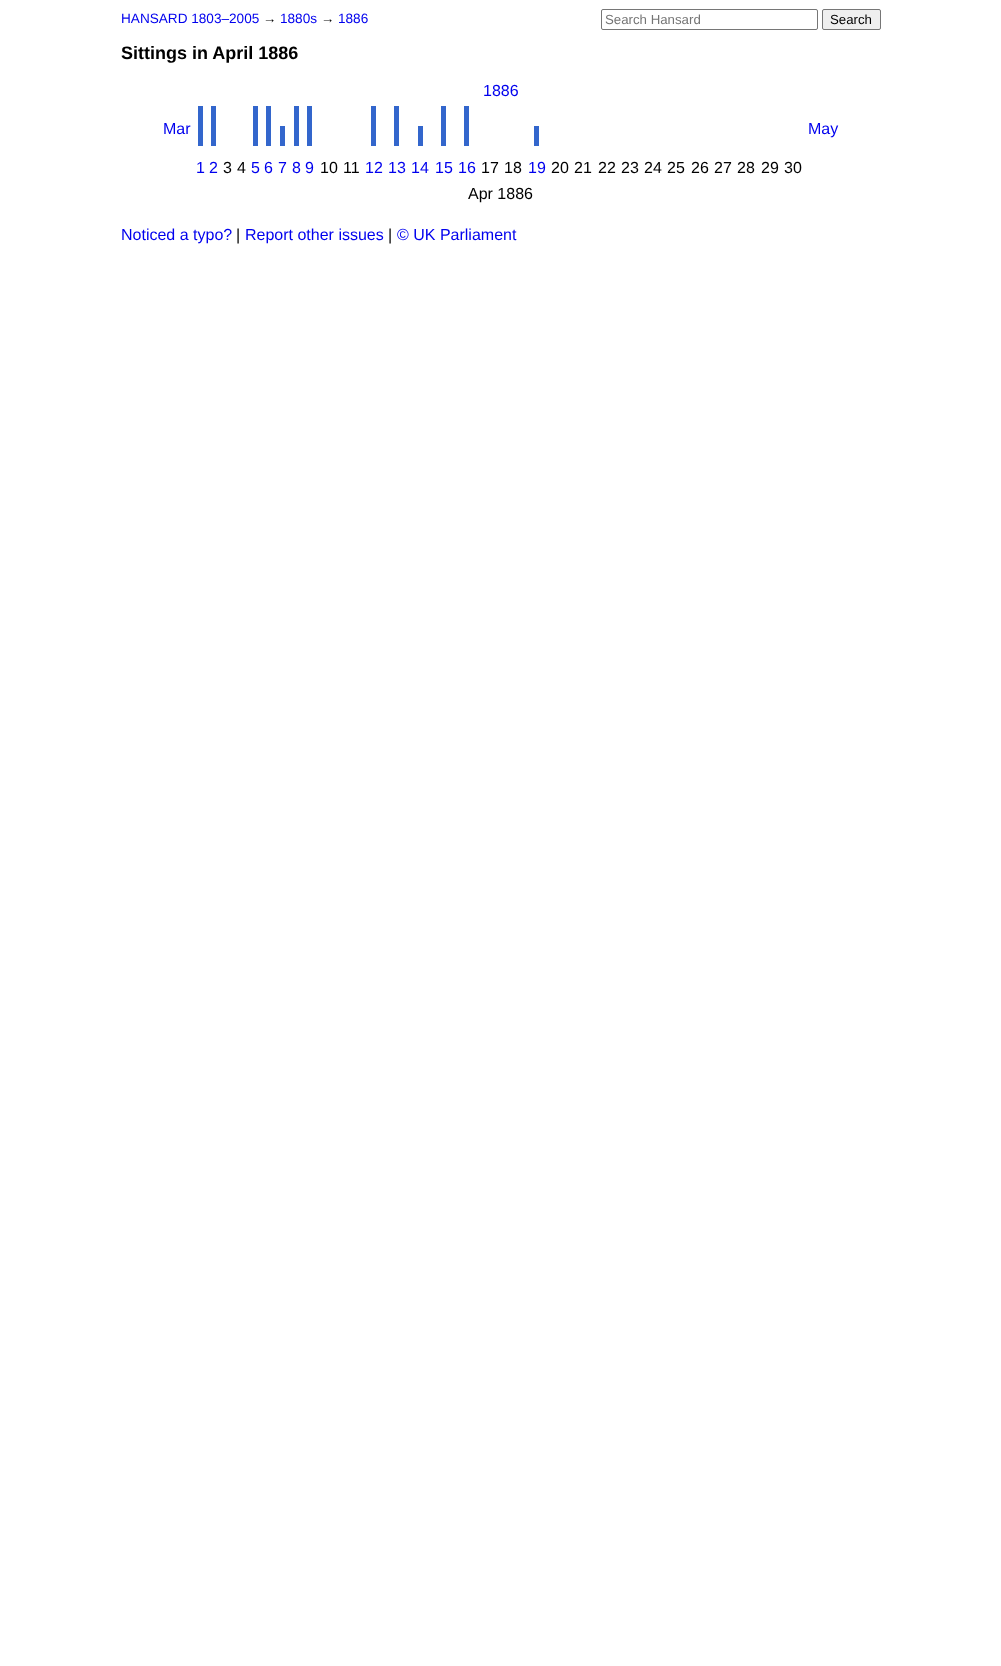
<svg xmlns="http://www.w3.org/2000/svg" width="1001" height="1666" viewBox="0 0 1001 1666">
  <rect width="100%" height="100%" fill="#fff"/>
  <rect x="601.5" y="9.5" width="216" height="20" rx="1.5" fill="none" stroke="#767676"/>
  <rect x="822.5" y="9.5" width="58" height="20" rx="1.5" fill="#efefef" stroke="#767676"/>
  <path d="M198 106h5v40H198z" fill="#36c"/>
  <path d="M211 106h5v40H211z" fill="#36c"/>
  <path d="M253 106h5v40H253z" fill="#36c"/>
  <path d="M266 106h5v40H266z" fill="#36c"/>
  <path d="M280 126h5v20H280z" fill="#36c"/>
  <path d="M294 106h5v40H294z" fill="#36c"/>
  <path d="M307 106h5v40H307z" fill="#36c"/>
  <path d="M371 106h5v40H371z" fill="#36c"/>
  <path d="M394 106h5v40H394z" fill="#36c"/>
  <path d="M418 126h5v20H418z" fill="#36c"/>
  <path d="M441 106h5v40H441z" fill="#36c"/>
  <path d="M464 106h5v40H464z" fill="#36c"/>
  <path d="M534 126h5v20H534z" fill="#36c"/>
  <text x="121" y="23" font-family="Liberation Sans" font-size="13.6" fill="#00e">HANSARD 1803–2005</text>
  <text x="263" y="23" font-family="Liberation Sans" font-size="13.6" fill="#000">→</text>
  <text x="280" y="23" font-family="Liberation Sans" font-size="13.6" fill="#00e">1880s</text>
  <text x="321" y="23" font-family="Liberation Sans" font-size="13.6" fill="#000">→</text>
  <text x="338" y="23" font-family="Liberation Sans" font-size="13.6" fill="#00e">1886</text>
  <text x="605" y="24" font-family="Liberation Sans" font-size="13.25" fill="#757575">Search Hansard</text>
  <text x="830" y="24" font-family="Liberation Sans" font-size="13.25" fill="#000">Search</text>
  <text x="121" y="59" font-family="Liberation Sans" font-size="18" font-weight="bold" fill="#000">Sittings in April 1886</text>
  <g font-family="Liberation Sans" font-size="16" fill="#00e">
    <text x="483" y="96">1886</text>
    <text x="163" y="134">Mar</text>
    <text x="808" y="134">May</text>
    <text x="196" y="173">1</text>
    <text x="209" y="173">2</text>
  </g>
  <g font-family="Liberation Sans" font-size="16" fill="#000">
    <text x="223" y="173">3</text>
    <text x="237" y="173">4</text>
  </g>
  <g font-family="Liberation Sans" font-size="16" fill="#00e">
    <text x="251" y="173">5</text>
    <text x="264" y="173">6</text>
    <text x="278" y="173">7</text>
    <text x="292" y="173">8</text>
    <text x="305" y="173">9</text>
  </g>
  <g font-family="Liberation Sans" font-size="16" fill="#000">
    <text x="320" y="173">10</text>
    <text x="343" y="173">11</text>
  </g>
  <g font-family="Liberation Sans" font-size="16" fill="#00e">
    <text x="365" y="173">12</text>
    <text x="388" y="173">13</text>
    <text x="411" y="173">14</text>
    <text x="435" y="173">15</text>
    <text x="458" y="173">16</text>
  </g>
  <g font-family="Liberation Sans" font-size="16" fill="#000">
    <text x="481" y="173">17</text>
    <text x="504" y="173">18</text>
  </g>
  <text x="528" y="173" font-family="Liberation Sans" font-size="16" fill="#00e">19</text>
  <g font-family="Liberation Sans" font-size="16" fill="#000">
    <text x="551" y="173">20</text>
    <text x="574" y="173">21</text>
    <text x="598" y="173">22</text>
    <text x="621" y="173">23</text>
    <text x="644" y="173">24</text>
    <text x="667" y="173">25</text>
    <text x="691" y="173">26</text>
    <text x="714" y="173">27</text>
    <text x="737" y="173">28</text>
    <text x="761" y="173">29</text>
    <text x="784" y="173">30</text>
    <text x="468" y="199">Apr 1886</text>
  </g>
  <text x="121" y="240" font-family="Liberation Sans" font-size="16" fill="#00e">Noticed a typo?</text>
  <text x="236" y="240" font-family="Liberation Sans" font-size="16" fill="#000">|</text>
  <text x="245" y="240" font-family="Liberation Sans" font-size="16" fill="#00e">Report other issues</text>
  <text x="388" y="240" font-family="Liberation Sans" font-size="16" fill="#000">|</text>
  <text x="397" y="240" font-family="Liberation Sans" font-size="16" fill="#00e">© UK Parliament</text>
</svg>
